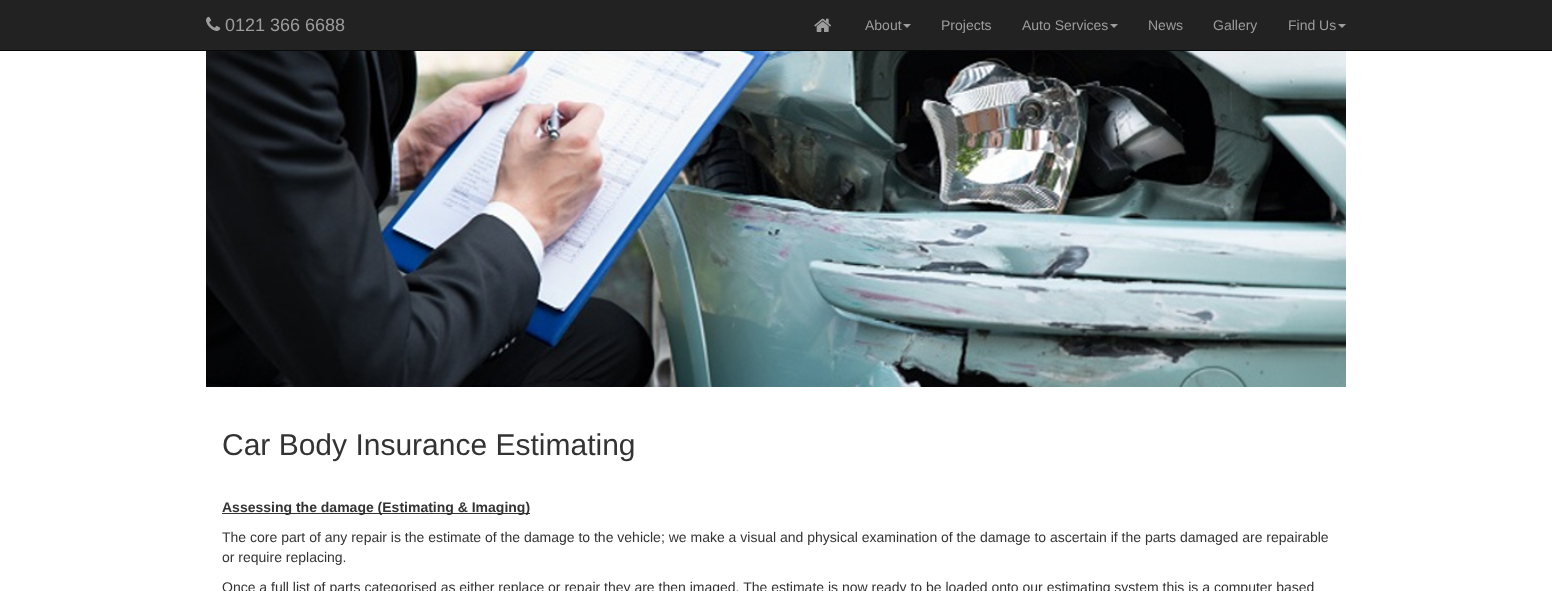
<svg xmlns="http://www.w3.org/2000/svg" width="1552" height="591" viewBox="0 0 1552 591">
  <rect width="100%" height="100%" fill="#fff"/>
  <path d="M0 0h1552v50H0z" fill="#222"/>
  <path d="M0 50h1552v1H0z" fill="#080808"/>
  <image x="206" y="16" width="15" height="15" href="img/1.png"/>
  <image x="814" y="18" width="17" height="14" href="img/2.png"/>
  <path d="M903 24H911L907 28Z" fill="#9d9d9d"/>
  <path d="M1110 24H1118L1114 28Z" fill="#9d9d9d"/>
  <path d="M1338 24H1346L1342 28Z" fill="#9d9d9d"/>
  <image x="206" y="51" width="1140" height="336" href="img/3.png"/>
  <path d="M222 513h308v1H222z" fill="#333"/>
  <text x="225" y="31" font-family="Liberation Sans" font-size="18" fill="#9d9d9d">0121 366 6688</text>
  <g font-family="Liberation Sans" font-size="14" fill="#9d9d9d">
    <text x="865" y="30">About</text>
    <text x="941" y="30">Projects</text>
    <text x="1022" y="30">Auto Services</text>
    <text x="1148" y="30">News</text>
    <text x="1213" y="30">Gallery</text>
    <text x="1288" y="30">Find Us</text>
  </g>
  <text x="222" y="455" font-family="Liberation Sans" font-size="30" fill="#333">Car Body Insurance Estimating</text>
  <text x="222" y="512" font-family="Liberation Sans" font-size="14" font-weight="bold" fill="#333">Assessing the damage (Estimating &amp; Imaging)</text>
  <g font-family="Liberation Sans" font-size="14" fill="#333">
    <text x="222" y="542">The core part of any repair is the estimate of the damage to the vehicle; we make a visual and physical examination of the damage to ascertain if the parts damaged are repairable</text>
    <text x="222" y="562">or require replacing.</text>
    <text x="222" y="592">Once a full list of parts categorised as either replace or repair they are then imaged. The estimate is now ready to be loaded onto our estimating system this is a computer based</text>
  </g>
</svg>
